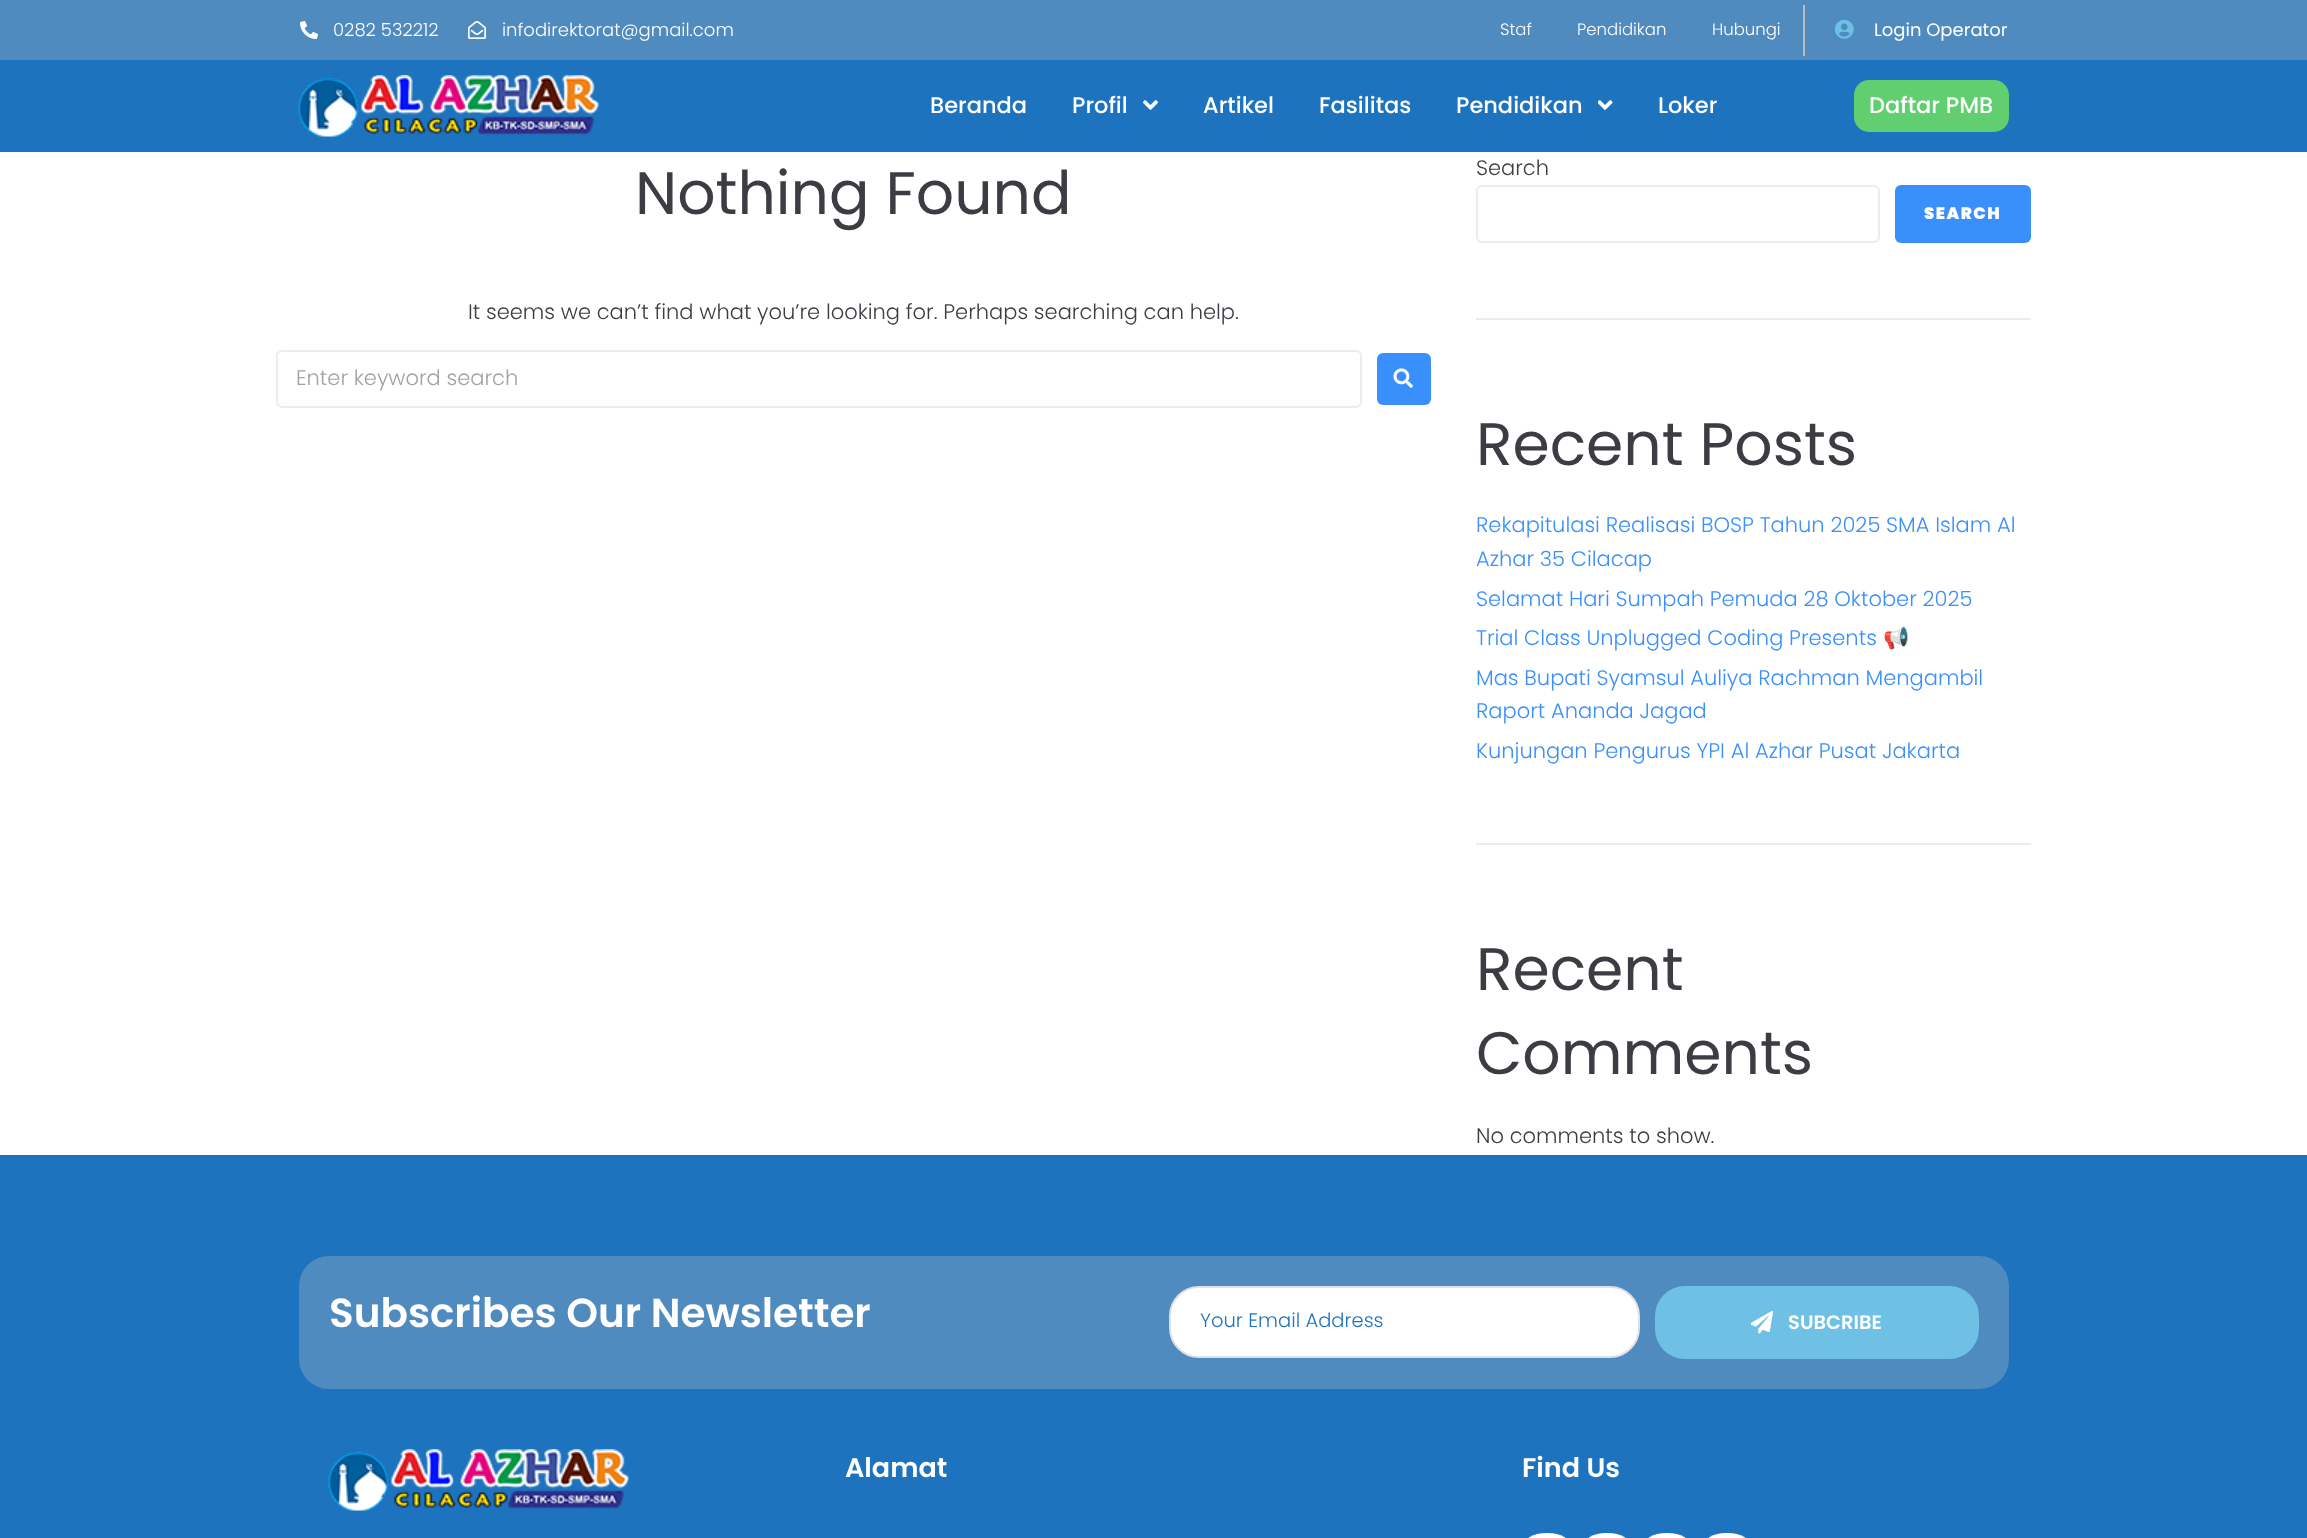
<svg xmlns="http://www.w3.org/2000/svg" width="2307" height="1538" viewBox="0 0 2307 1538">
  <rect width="100%" height="100%" fill="#fff"/>
  <path d="M0 0h2307v60H0z" fill="#508bbf"/>
  <image x="300" y="21" width="18" height="18" href="img/1.png"/>
  <image x="468" y="21" width="18" height="18" href="img/2.png"/>
  <path d="M1803 5h2v51H1803z" fill="#bbb"/>
  <image x="1835" y="20" width="19" height="19" href="img/3.png"/>
  <path d="M0 60h2307v92H0z" fill="#1e73be"/>
  <image x="298" y="75" width="301" height="62" href="img/4.png"/>
  <image x="1143" y="100" width="15" height="10" href="img/5.png"/>
  <image x="1598" y="100" width="15" height="10" href="img/6.png"/>
  <rect x="1854" y="80" width="155" height="52" rx="15" fill="#61ce70"/>
  <rect x="277" y="351" width="1084" height="56" rx="5" fill="none" stroke="#ebeced" stroke-width="2"/>
  <rect x="1377" y="353" width="54" height="52" rx="6" fill="#398ffc"/>
  <image x="1393" y="368" width="20" height="20" href="img/7.png"/>
  <rect x="1477" y="186" width="402" height="56" rx="5" fill="none" stroke="#ebeced" stroke-width="2"/>
  <rect x="1895" y="185" width="136" height="58" rx="6" fill="#398ffc"/>
  <path d="M1476 318h555v2H1476z" fill="#ebeced"/>
  <path d="M1476 843h555v2H1476z" fill="#ebeced"/>
  <path d="M0 1155h2307v383H0z" fill="#1e73be"/>
  <rect x="299" y="1256" width="1710" height="133" rx="30" fill="#508bbf"/>
  <rect x="1170" y="1287" width="469" height="70" rx="29" fill="#fff" stroke="#e0e0e8" stroke-width="2"/>
  <rect x="1655" y="1286" width="324" height="73" rx="30" fill="#6ec1e4"/>
  <image x="1751" y="1311" width="22" height="23" href="img/8.png"/>
  <image x="328" y="1449" width="301" height="62" href="img/9.png"/>
  <rect x="1523" y="1533" width="48" height="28" rx="23" fill="#fff"/>
  <rect x="1583" y="1533" width="48" height="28" rx="23" fill="#fff"/>
  <rect x="1643" y="1533" width="48" height="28" rx="23" fill="#fff"/>
  <rect x="1703" y="1533" width="48" height="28" rx="23" fill="#fff"/>
  <g font-family="Poppins" font-size="18" font-weight="300" fill="#fff">
    <text x="333" y="36">0282 532212</text>
    <text x="502" y="36">infodirektorat@gmail.com</text>
  </g>
  <g font-family="Poppins" font-size="16.5" font-weight="300" fill="#fff">
    <text x="1500" y="35">Staf</text>
    <text x="1577" y="35">Pendidikan</text>
    <text x="1712" y="35">Hubungi</text>
  </g>
  <text x="1874" y="36" font-family="Poppins" font-size="18" fill="#fff">Login Operator</text>
  <g font-family="Poppins" font-size="22.5" font-weight="500" fill="#fff">
    <text x="930" y="113">Beranda</text>
    <text x="1072" y="113">Profil</text>
    <text x="1203" y="113">Artikel</text>
    <text x="1319" y="113">Fasilitas</text>
    <text x="1456" y="113">Pendidikan</text>
    <text x="1658" y="113">Loker</text>
    <text x="1869" y="113">Daftar PMB</text>
  </g>
  <text x="635" y="214" font-family="Poppins" font-size="60" fill="#3b3d42">Nothing Found</text>
  <text x="468" y="319" font-family="Poppins" font-size="21" font-weight="300" fill="#3b3d42">It seems we can’t find what you’re looking for. Perhaps searching can help.</text>
  <text x="296" y="385" font-family="Poppins" font-size="21" font-weight="300" fill="#a1a2a4">Enter keyword search</text>
  <text x="1476" y="175" font-family="Poppins" font-size="21" font-weight="300" fill="#3b3d42">Search</text>
  <text x="1924" y="219" font-family="Poppins" font-size="16.5" font-weight="900" letter-spacing="1.5" fill="#fff">SEARCH</text>
  <text x="1476" y="465" font-family="Poppins" font-size="60" fill="#3b3d42">Recent Posts</text>
  <g font-family="Poppins" font-size="21" font-weight="300" fill="#398ffc">
    <text x="1476" y="532">Rekapitulasi Realisasi BOSP Tahun 2025 SMA Islam Al</text>
    <text x="1476" y="566">Azhar 35 Cilacap</text>
    <text x="1476" y="606">Selamat Hari Sumpah Pemuda 28 Oktober 2025</text>
    <text x="1476" y="645">Trial Class Unplugged Coding Presents</text>
  </g>
  <text x="1883" y="645" font-family="Noto Color Emoji" font-size="21" fill="#398ffc">📢</text>
  <g font-family="Poppins" font-size="21" font-weight="300" fill="#398ffc">
    <text x="1476" y="685">Mas Bupati Syamsul Auliya Rachman Mengambil</text>
    <text x="1476" y="718">Raport Ananda Jagad</text>
    <text x="1476" y="758">Kunjungan Pengurus YPI Al Azhar Pusat Jakarta</text>
  </g>
  <g font-family="Poppins" font-size="60" fill="#3b3d42">
    <text x="1476" y="990">Recent</text>
    <text x="1476" y="1074">Comments</text>
  </g>
  <text x="1476" y="1143" font-family="Poppins" font-size="21" font-weight="300" fill="#3b3d42">No comments to show.</text>
  <text x="329" y="1327" font-family="Poppins" font-size="40.5" font-weight="600" fill="#fff">Subscribes Our Newsletter</text>
  <text x="1200" y="1327" font-family="Poppins" font-size="19.5" font-weight="300" fill="#1e73be">Your Email Address</text>
  <text x="1788" y="1329" font-family="Poppins" font-size="19.5" font-weight="600" fill="#fff">SUBCRIBE</text>
  <g font-family="Poppins" font-size="27" font-weight="600" fill="#fff">
    <text x="845" y="1477">Alamat</text>
    <text x="1522" y="1477">Find Us</text>
  </g>
</svg>
